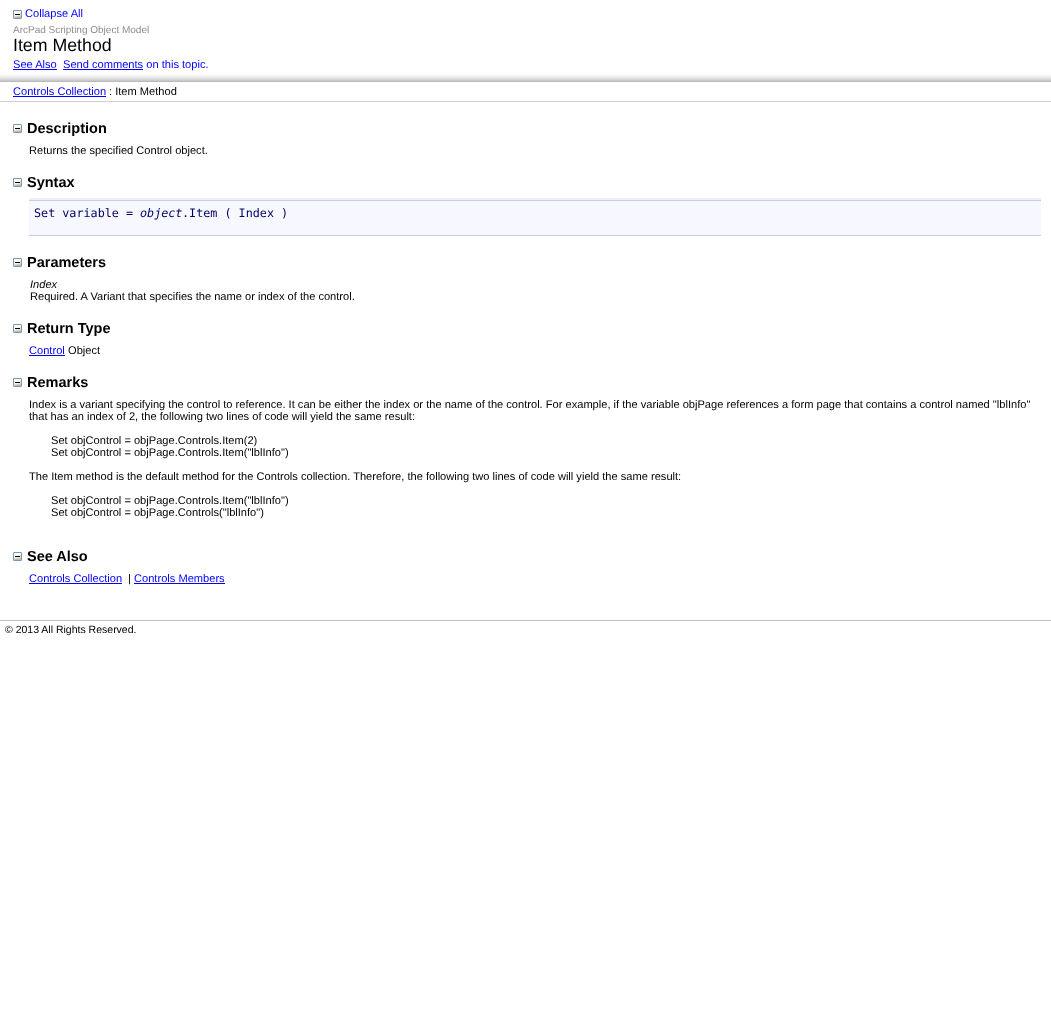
<svg xmlns="http://www.w3.org/2000/svg" width="1051" height="1020" viewBox="0 0 1051 1020">
  <rect width="100%" height="100%" fill="#fff"/>
  <image x="13" y="10" width="9" height="9" href="img/1.png"/>
  <image x="0" y="74" width="1051" height="8" href="img/2.png"/>
  <path d="M13 69h44v1H13z" fill="#00f"/>
  <path d="M63 69h80v1H63z" fill="#00f"/>
  <path d="M0 101h1051v1H0z" fill="#d0d0d0"/>
  <path d="M13 96h93v1H13z" fill="#00f"/>
  <image x="13" y="124" width="9" height="9" href="img/1.png"/>
  <image x="13" y="178" width="9" height="9" href="img/1.png"/>
  <path d="M29 198h1012v2H29z" fill="#efeff7"/>
  <path d="M29 200h1012v1H29z" fill="#c8cdde"/>
  <path d="M29 201h1012v34H29z" fill="#f7f7ff"/>
  <path d="M29 235h1012v1H29z" fill="#c8cdde"/>
  <image x="13" y="258" width="9" height="9" href="img/1.png"/>
  <image x="13" y="324" width="9" height="9" href="img/1.png"/>
  <path d="M29 355h36v1H29z" fill="#00f"/>
  <image x="13" y="378" width="9" height="9" href="img/1.png"/>
  <image x="13" y="552" width="9" height="9" href="img/1.png"/>
  <path d="M29 583h93v1H29z" fill="#00f"/>
  <path d="M134 583h91v1H134z" fill="#00f"/>
  <path d="M0 620h1051v1H0z" fill="#c0c0c0"/>
  <text x="25" y="17" font-family="Liberation Sans" font-size="11.1" fill="#00f">Collapse All</text>
  <text x="13" y="33" font-family="Liberation Sans" font-size="10" fill="#8c8c8c">ArcPad Scripting Object Model</text>
  <text x="13" y="51" font-family="Liberation Sans" font-size="17.75" fill="#000">Item Method</text>
  <g font-family="Liberation Sans" font-size="11.1" fill="#00f">
    <text x="13" y="68">See Also</text>
    <text x="63" y="68">Send comments on this topic.</text>
    <text x="13" y="95">Controls Collection</text>
  </g>
  <text x="109" y="95" font-family="Liberation Sans" font-size="11.1" fill="#000">: Item Method</text>
  <text x="27" y="133" font-family="Liberation Sans" font-size="14.5" font-weight="bold" fill="#000">Description</text>
  <text x="29" y="154" font-family="Liberation Sans" font-size="11.1" fill="#000">Returns the specified Control object.</text>
  <text x="27" y="187" font-family="Liberation Sans" font-size="14.5" font-weight="bold" fill="#000">Syntax</text>
  <text x="34" y="217" font-family="DejaVu Sans Mono" font-size="11.75" fill="#006">Set variable =</text>
  <text x="140" y="217" font-family="DejaVu Sans Mono" font-size="11.75" font-style="italic" fill="#006">object</text>
  <text x="182" y="217" font-family="DejaVu Sans Mono" font-size="11.75" fill="#006">.Item ( Index )</text>
  <text x="27" y="267" font-family="Liberation Sans" font-size="14.5" font-weight="bold" fill="#000">Parameters</text>
  <text x="30" y="288" font-family="Liberation Sans" font-size="11.1" font-style="italic" fill="#000">Index</text>
  <text x="30" y="300" font-family="Liberation Sans" font-size="11.1" fill="#000">Required. A Variant that specifies the name or index of the control.</text>
  <text x="27" y="333" font-family="Liberation Sans" font-size="14.5" font-weight="bold" fill="#000">Return Type</text>
  <text x="29" y="354" font-family="Liberation Sans" font-size="11.1" fill="#00f">Control</text>
  <text x="68" y="354" font-family="Liberation Sans" font-size="11.1" fill="#000">Object</text>
  <text x="27" y="387" font-family="Liberation Sans" font-size="14.5" font-weight="bold" fill="#000">Remarks</text>
  <g font-family="Liberation Sans" font-size="11.1" fill="#000">
    <text x="29" y="408">Index is a variant specifying the control to reference. It can be either the index or the name of the control. For example, if the variable objPage references a form page that contains a control named "lblInfo"</text>
    <text x="29" y="420">that has an index of 2, the following two lines of code will yield the same result:</text>
    <text x="51" y="444">Set objControl = objPage.Controls.Item(2)</text>
    <text x="51" y="456">Set objControl = objPage.Controls.Item("lblInfo")</text>
    <text x="29" y="480">The Item method is the default method for the Controls collection. Therefore, the following two lines of code will yield the same result:</text>
    <text x="51" y="504">Set objControl = objPage.Controls.Item("lblInfo")</text>
    <text x="51" y="516">Set objControl = objPage.Controls("lblInfo")</text>
  </g>
  <text x="27" y="561" font-family="Liberation Sans" font-size="14.5" font-weight="bold" fill="#000">See Also</text>
  <text x="29" y="582" font-family="Liberation Sans" font-size="11.1" fill="#00f">Controls Collection</text>
  <text x="128" y="582" font-family="Liberation Sans" font-size="11.1" fill="#000">|</text>
  <text x="134" y="582" font-family="Liberation Sans" font-size="11.1" fill="#00f">Controls Members</text>
  <text x="5" y="633" font-family="Liberation Sans" font-size="10.5" fill="#000">© 2013 All Rights Reserved.</text>
</svg>
